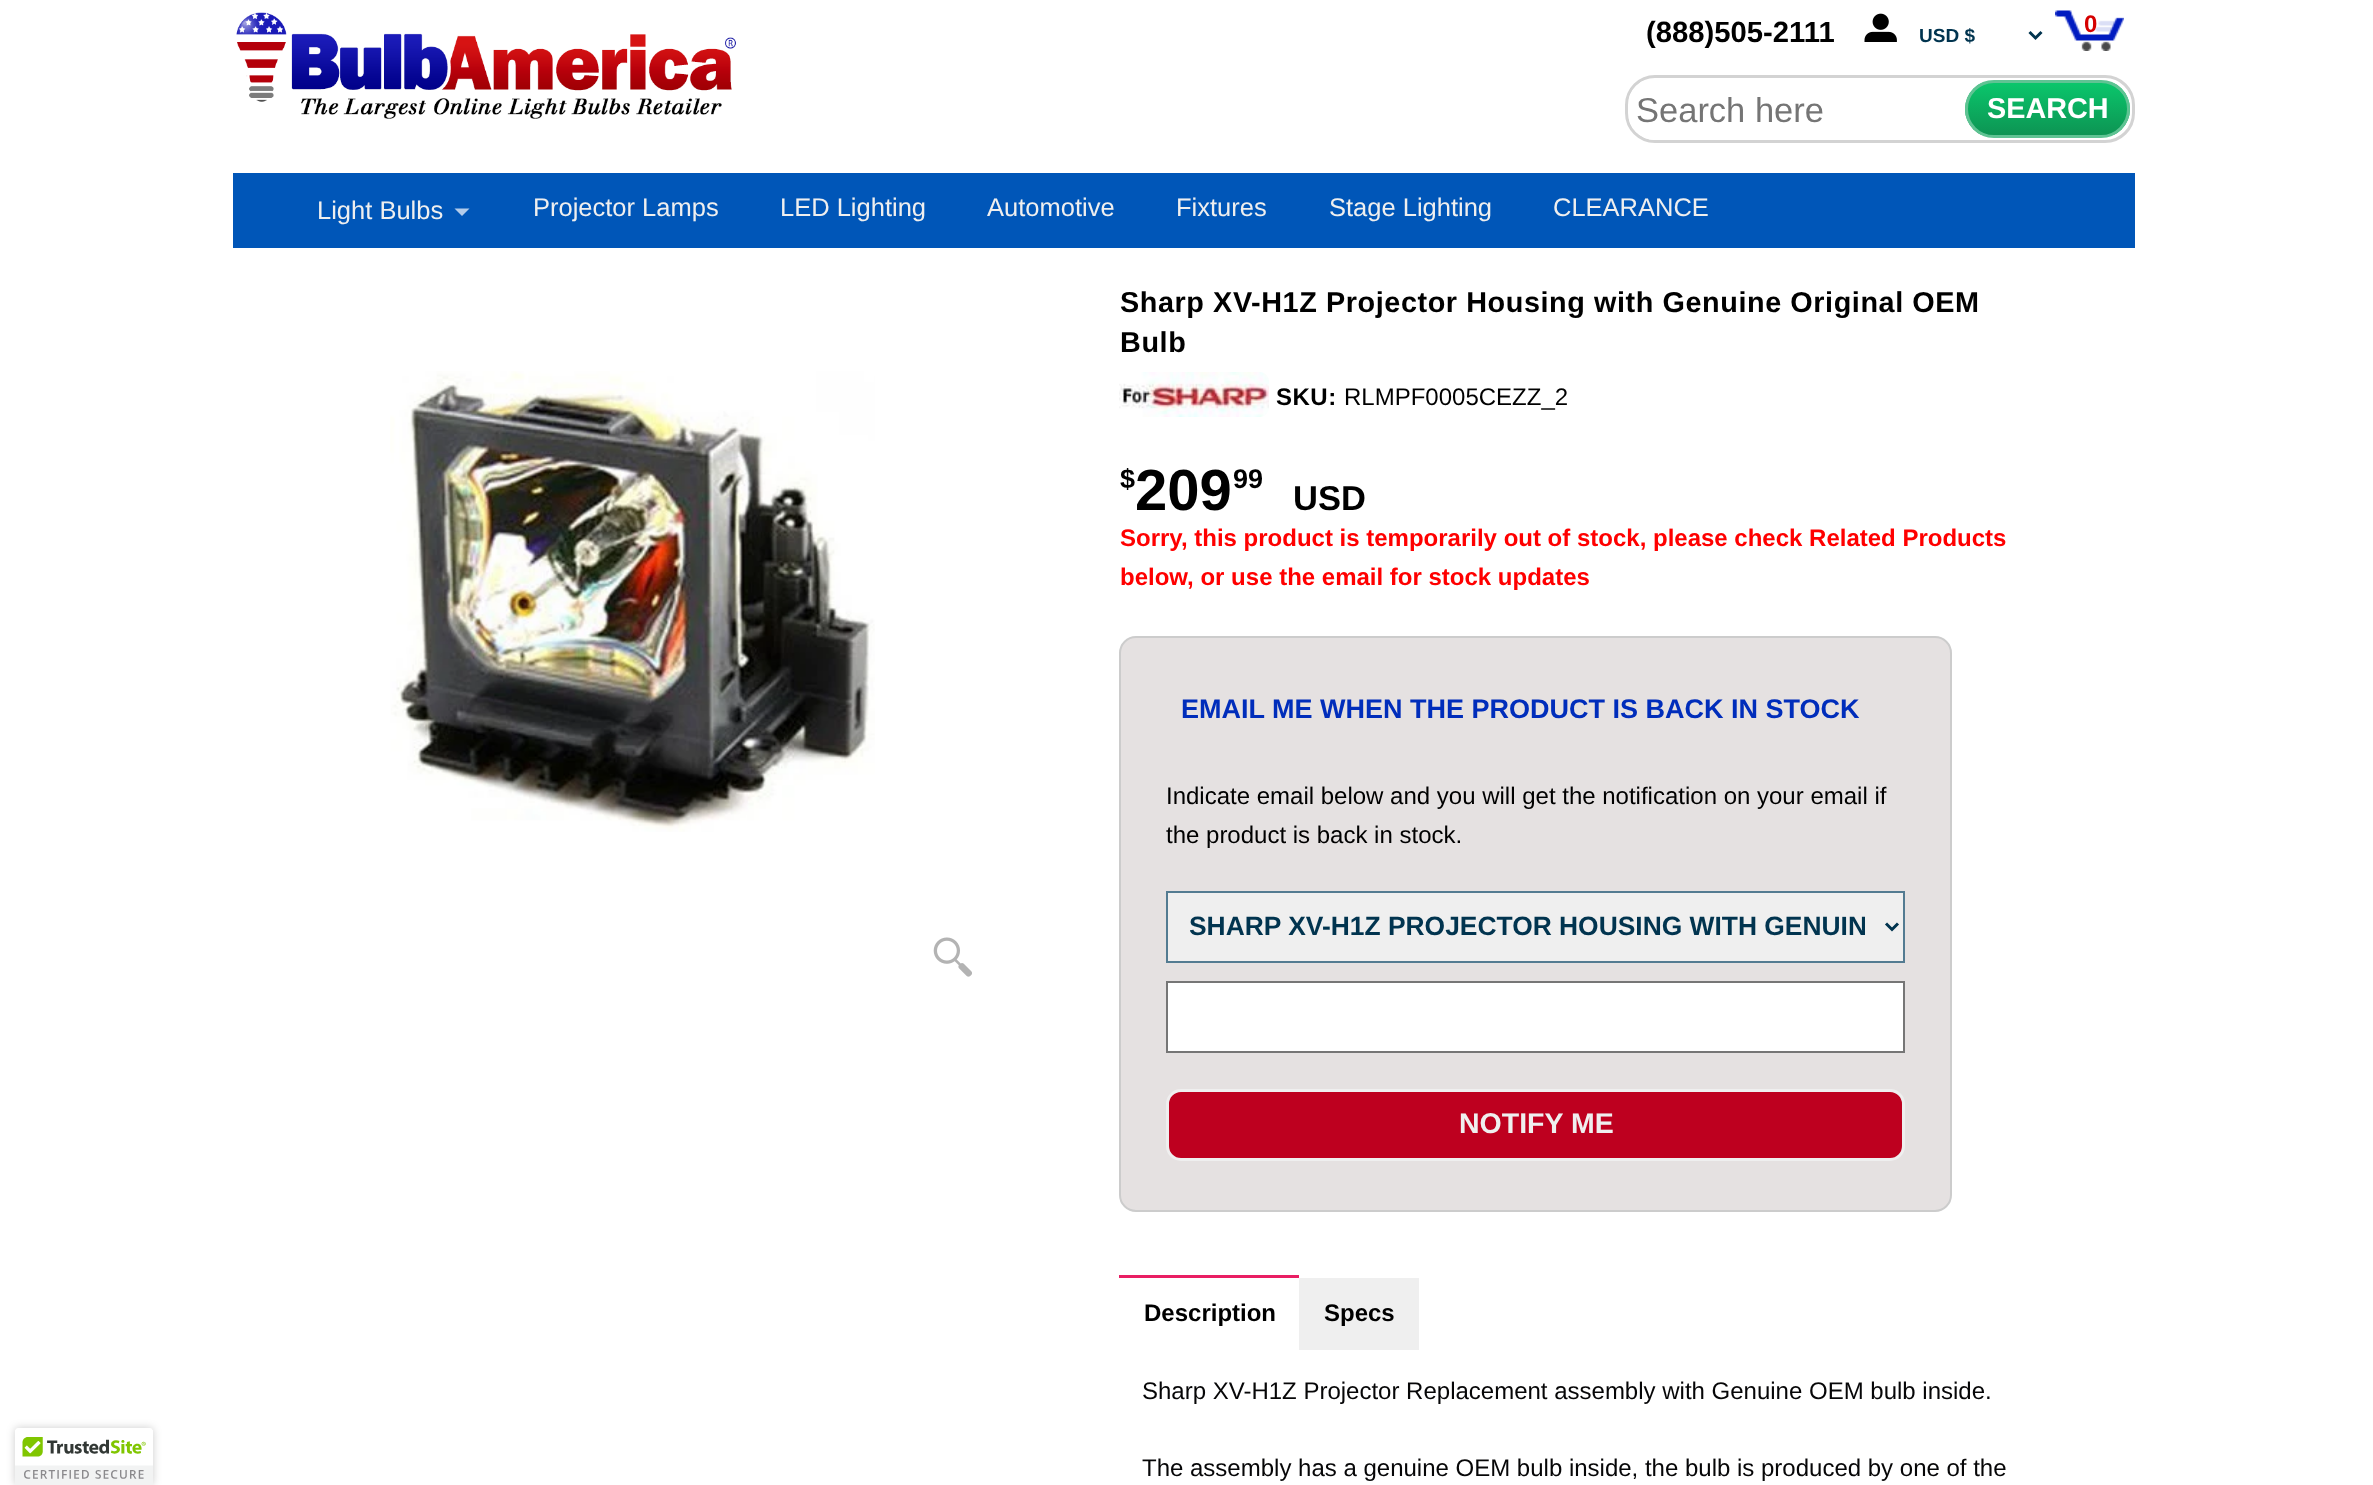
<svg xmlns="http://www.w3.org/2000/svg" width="2373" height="1485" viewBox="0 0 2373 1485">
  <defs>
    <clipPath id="clip1"><rect x="1628" y="78" width="504" height="62" rx="27"/></clipPath>
    <clipPath id="clip2"><rect x="1965" y="80" width="165" height="58" rx="29"/></clipPath>
    <linearGradient id="g1" gradientUnits="userSpaceOnUse" x1="2048" y1="82" x2="2048" y2="135"><stop offset="0" stop-color="#0ac76c"/><stop offset="1" stop-color="#0d9453"/></linearGradient>
    <clipPath id="clip3"><path d="M1190 911h675v33H1190z"/></clipPath>
  </defs>
  <rect width="100%" height="100%" fill="#fff"/>
  <image x="236" y="12" width="500" height="107" href="img/1.png"/>
  <image x="1864" y="13" width="33" height="29" href="img/2.png"/>
  <image x="2055" y="10" width="69" height="41" href="img/3.png"/>
  <path d="M2029.5 32L2035.5 38L2041.5 32" fill="none" stroke="#01344f" stroke-width="3"/>
  <rect x="1626.5" y="76.5" width="507" height="65" rx="28.5" fill="none" stroke="#d3d3d3" stroke-width="3"/>
  <g clip-path="url(#clip1)">
    <path d="M1629 81h323v59H1629z" fill="#fff"/>
  </g>
  <g clip-path="url(#clip2)">
    <path d="M1965 83h165v52H1965z" fill="url(#g1)"/>
  </g>
  <rect x="1966.5" y="81.5" width="162" height="55" rx="27.5" fill="none" stroke="#5fc393" stroke-width="3"/>
  <path d="M233 173h1902v75H233z" fill="#0056b8"/>
  <path d="M454.5 208.5H469.5L462 216Z" fill="#b3ccea"/>
  <rect x="15" y="1428" width="138" height="57" rx="3" fill="#00000033" filter="blur(4px)"/>
  <path d="M18 1428H150C151.5 1428 153 1429.5 153 1431V1485H15V1431C15 1429.5 16.5 1428 18 1428Z" fill="#fff"/>
  <image x="15" y="1429" width="138" height="56" href="img/4.png"/>
  <image x="390" y="371" width="485" height="461" href="img/5.png"/>
  <image x="933" y="937" width="39" height="40" href="img/6.png"/>
  <image x="1119" y="372" width="150" height="45" href="img/7.png"/>
  <rect x="1120" y="637" width="831" height="574" rx="16" fill="#e5e1e1" stroke="#ccc" stroke-width="2"/>
  <path d="M1167 892h737v70H1167z" fill="#efefef" stroke="#537b91" stroke-width="2"/>
  <path d="M1886 923.5L1892 929.5L1898 923.5" fill="none" stroke="#01344f" stroke-width="3"/>
  <path d="M1167 982h737v70H1167z" fill="#fff" stroke="#767676" stroke-width="2"/>
  <rect x="1167.5" y="1090.5" width="736" height="69" rx="13.5" fill="#be001f" stroke="#efefef" stroke-width="3"/>
  <path d="M1119 1275h180v3H1119z" fill="#e91e63"/>
  <path d="M1299 1278h120v72H1299z" fill="#efefef"/>
  <text x="1646" y="42" font-family="Liberation Sans" font-size="29.25" font-weight="bold" fill="#000">(888)505-2111</text>
  <text x="2084" y="32" font-family="Liberation Sans" font-size="24" font-weight="bold" fill="#d50000">0</text>
  <text x="1919" y="42" font-family="Liberation Sans" font-size="19" font-weight="bold" fill="#01344f">USD $</text>
  <text x="1636" y="122" font-family="Liberation Sans" font-size="34.5" fill="#757575">Search here</text>
  <text x="1987" y="118" font-family="Liberation Sans" font-size="28.8" font-weight="bold" fill="#fff">SEARCH</text>
  <g font-family="Liberation Sans" font-size="25.5" fill="#efefef">
    <text x="317" y="219">Light Bulbs</text>
    <text x="533" y="216">Projector Lamps</text>
    <text x="780" y="216">LED Lighting</text>
    <text x="987" y="216">Automotive</text>
    <text x="1176" y="216">Fixtures</text>
    <text x="1329" y="216">Stage Lighting</text>
    <text x="1553" y="216">CLEARANCE</text>
  </g>
  <g font-family="Liberation Sans" font-size="28.8" font-weight="bold" letter-spacing="0.58" fill="#000">
    <text x="1120" y="312">Sharp XV-H1Z Projector Housing with Genuine Original OEM</text>
    <text x="1120" y="352">Bulb</text>
  </g>
  <text x="1276" y="405" font-family="Liberation Sans" font-size="24" font-weight="bold" letter-spacing="0.5" fill="#000">SKU:</text>
  <text x="1344" y="405" font-family="Liberation Sans" font-size="24" fill="#000">RLMPF0005CEZZ_2</text>
  <text x="1120" y="488" font-family="Liberation Sans" font-size="27" font-weight="bold" fill="#000">$</text>
  <text x="1135" y="510" font-family="Liberation Sans" font-size="58" font-weight="bold" fill="#000">209</text>
  <text x="1233" y="488" font-family="Liberation Sans" font-size="27" font-weight="bold" fill="#000">99</text>
  <text x="1293" y="510" font-family="Liberation Sans" font-size="34.5" font-weight="bold" fill="#000">USD</text>
  <g font-family="Liberation Sans" font-size="24" font-weight="bold" fill="#f00">
    <text x="1120" y="546">Sorry, this product is temporarily out of stock, please check Related Products</text>
    <text x="1120" y="585">below, or use the email for stock updates</text>
  </g>
  <text x="1181" y="718" font-family="Liberation Sans" font-size="27" font-weight="bold" fill="#002dbb">EMAIL ME WHEN THE PRODUCT IS BACK IN STOCK</text>
  <g font-family="Liberation Sans" font-size="24" fill="#000">
    <text x="1166" y="804">Indicate email below and you will get the notification on your email if</text>
    <text x="1166" y="843">the product is back in stock.</text>
  </g>
  <g clip-path="url(#clip3)">
    <text x="1189" y="935" font-family="Liberation Sans" font-size="26.4" font-weight="bold" fill="#01344f">SHARP XV-H1Z PROJECTOR HOUSING WITH GENUIN</text>
  </g>
  <text x="1459" y="1133" font-family="Liberation Sans" font-size="28.5" font-weight="bold" fill="#efefef">NOTIFY ME</text>
  <g font-family="Liberation Sans" font-size="24" font-weight="bold" fill="#000">
    <text x="1144" y="1321">Description</text>
    <text x="1324" y="1321">Specs</text>
  </g>
  <g font-family="Liberation Sans" font-size="24" fill="#060607">
    <text x="1142" y="1399">Sharp XV-H1Z Projector Replacement assembly with Genuine OEM bulb inside.</text>
    <text x="1142" y="1476">The assembly has a genuine OEM bulb inside, the bulb is produced by one of the</text>
  </g>
</svg>
